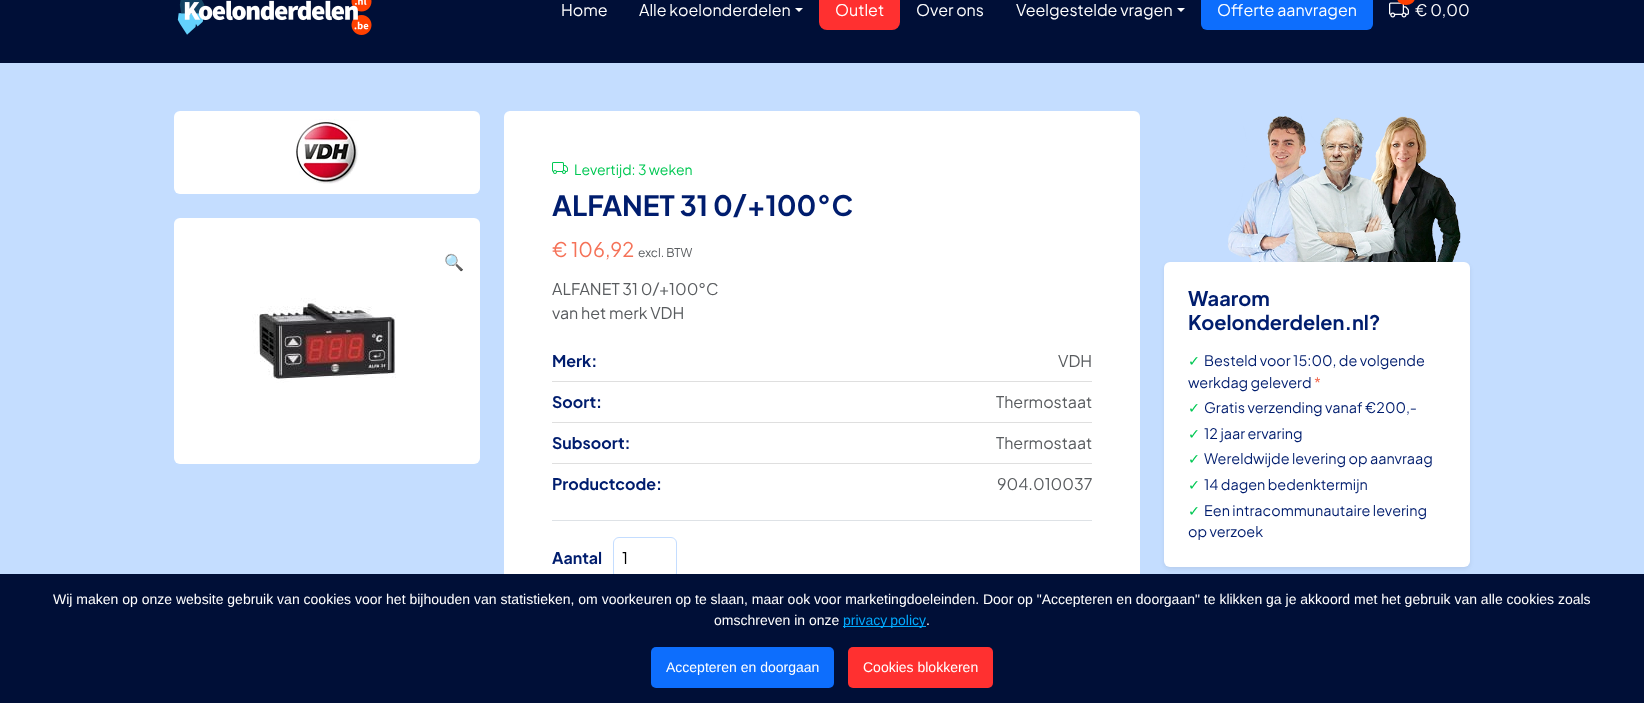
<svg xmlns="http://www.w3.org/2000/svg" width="1644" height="703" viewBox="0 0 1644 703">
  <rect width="100%" height="100%" fill="#000f37"/>
  <image x="177" y="0" width="195" height="35" href="img/1.png"/>
  <path d="M795 8H803L799 12Z" fill="#fff"/>
  <rect x="819" y="-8" width="81" height="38" rx="8" fill="#ff3030"/>
  <path d="M1177 8H1185L1181 12Z" fill="#fff"/>
  <rect x="1201" y="-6" width="172" height="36" rx="6" fill="#0d6efd"/>
  <image x="1389" y="2" width="20" height="16" href="img/2.png"/>
  <rect x="1397" y="-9" width="18" height="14" rx="9" fill="#ff4000"/>
  <path d="M0 63h1644v511H0z" fill="#c4ddff"/>
  <rect x="174" y="111" width="306" height="83" rx="6" fill="#fff"/>
  <image x="296" y="119" width="63" height="65" href="img/3.png"/>
  <rect x="174" y="218" width="306" height="246" rx="6" fill="#fff"/>
  <image x="252" y="298" width="144" height="85" href="img/4.png"/>
  <rect x="504" y="111" width="636" height="582" rx="6" fill="#fff"/>
  <image x="552" y="162" width="16" height="12" href="img/5.png"/>
  <path d="M552 381h540v1H552z" fill="#dfdfdf"/>
  <path d="M552 422h540v1H552z" fill="#dfdfdf"/>
  <path d="M552 463h540v1H552z" fill="#dfdfdf"/>
  <path d="M552 520h540v1H552z" fill="#dee2e6"/>
  <rect x="613.5" y="537.5" width="63" height="41" rx="5.5" fill="none" stroke="#c4ddff"/>
  <rect x="1164" y="264" width="306" height="305" rx="6" fill="#00000012" filter="blur(2px)"/>
  <image x="1227" y="116" width="234" height="146" href="img/6.png"/>
  <rect x="1164" y="262" width="306" height="305" rx="6" fill="#fff"/>
  <path d="M504 574h636v119H504z" fill="#000f37"/>
  <path d="M843 626h83v1H843z" fill="#0af"/>
  <rect x="651" y="647" width="183" height="41" rx="5" fill="#0d6efd"/>
  <rect x="848" y="647" width="145" height="41" rx="5" fill="#ff3030"/>
  <g font-family="Plus Jakarta Sans" font-size="16" fill="#fff">
    <text x="561" y="16">Home</text>
    <text x="639" y="16">Alle koelonderdelen</text>
    <text x="835" y="16">Outlet</text>
    <text x="916" y="16">Over ons</text>
    <text x="1016" y="16">Veelgestelde vragen</text>
    <text x="1217" y="16">Offerte aanvragen</text>
    <text x="1415" y="16">€ 0,00</text>
  </g>
  <text x="444" y="268" font-family="Noto Color Emoji" font-size="16" fill="#f57258">🔍</text>
  <text x="574" y="175" font-family="Plus Jakarta Sans" font-size="14" fill="#00c853">Levertijd: 3 weken</text>
  <text x="552" y="216" font-family="Plus Jakarta Sans" font-size="28" font-weight="bold" fill="#001d6e">ALFANET 31 0/+100°C</text>
  <text x="552" y="257" font-family="Plus Jakarta Sans" font-size="20" fill="#f57258">€ 106,92</text>
  <text x="638" y="257" font-family="Plus Jakarta Sans" font-size="12" fill="#595c5f">excl. BTW</text>
  <g font-family="Plus Jakarta Sans" font-size="16" fill="#595c5f">
    <text x="552" y="295">ALFANET 31 0/+100°C</text>
    <text x="552" y="319">van het merk VDH</text>
  </g>
  <text x="552" y="367" font-family="Plus Jakarta Sans" font-size="16" font-weight="bold" fill="#001d6e">Merk:</text>
  <text x="1058" y="367" font-family="Plus Jakarta Sans" font-size="16" fill="#595c5f">VDH</text>
  <text x="552" y="408" font-family="Plus Jakarta Sans" font-size="16" font-weight="bold" fill="#001d6e">Soort:</text>
  <text x="996" y="408" font-family="Plus Jakarta Sans" font-size="16" fill="#595c5f">Thermostaat</text>
  <text x="552" y="449" font-family="Plus Jakarta Sans" font-size="16" font-weight="bold" fill="#001d6e">Subsoort:</text>
  <text x="996" y="449" font-family="Plus Jakarta Sans" font-size="16" fill="#595c5f">Thermostaat</text>
  <text x="552" y="490" font-family="Plus Jakarta Sans" font-size="16" font-weight="bold" fill="#001d6e">Productcode:</text>
  <text x="997" y="490" font-family="Plus Jakarta Sans" font-size="16" fill="#595c5f">904.010037</text>
  <text x="552" y="564" font-family="Plus Jakarta Sans" font-size="16" font-weight="bold" fill="#001d6e">Aantal</text>
  <text x="622" y="564" font-family="Plus Jakarta Sans" font-size="16" fill="#000">1</text>
  <g font-family="Plus Jakarta Sans" font-size="20" font-weight="bold" fill="#001d6e">
    <text x="1188" y="306">Waarom</text>
    <text x="1188" y="330">Koelonderdelen.nl?</text>
  </g>
  <text x="1188" y="366" font-family="DejaVu Sans" font-size="14.4" fill="#00c853">✓</text>
  <g font-family="Plus Jakarta Sans" font-size="14.4" fill="#001d6e">
    <text x="1204" y="366">Besteld voor 15:00, de volgende</text>
    <text x="1188" y="388">werkdag geleverd</text>
  </g>
  <text x="1314" y="388" font-family="Plus Jakarta Sans" font-size="14.4" fill="#f57258">*</text>
  <text x="1188" y="413" font-family="DejaVu Sans" font-size="14.4" fill="#00c853">✓</text>
  <text x="1204" y="413" font-family="Plus Jakarta Sans" font-size="14.4" fill="#001d6e">Gratis verzending vanaf €200,-</text>
  <text x="1188" y="439" font-family="DejaVu Sans" font-size="14.4" fill="#00c853">✓</text>
  <text x="1204" y="439" font-family="Plus Jakarta Sans" font-size="14.4" fill="#001d6e">12 jaar ervaring</text>
  <text x="1188" y="464" font-family="DejaVu Sans" font-size="14.4" fill="#00c853">✓</text>
  <text x="1204" y="464" font-family="Plus Jakarta Sans" font-size="14.4" fill="#001d6e">Wereldwijde levering op aanvraag</text>
  <text x="1188" y="490" font-family="DejaVu Sans" font-size="14.4" fill="#00c853">✓</text>
  <text x="1204" y="490" font-family="Plus Jakarta Sans" font-size="14.4" fill="#001d6e">14 dagen bedenktermijn</text>
  <text x="1188" y="516" font-family="DejaVu Sans" font-size="14.4" fill="#00c853">✓</text>
  <g font-family="Plus Jakarta Sans" font-size="14.4" fill="#001d6e">
    <text x="1204" y="516">Een intracommunautaire levering</text>
    <text x="1188" y="537">op verzoek</text>
  </g>
  <g font-family="Liberation Sans" font-size="14" fill="#fff">
    <text x="53" y="604">Wij maken op onze website gebruik van cookies voor het bijhouden van statistieken, om voorkeuren op te slaan, maar ook voor marketingdoeleinden. Door op "Accepteren en doorgaan" te klikken ga je akkoord met het gebruik van alle cookies zoals</text>
    <text x="714" y="625">omschreven in onze</text>
  </g>
  <text x="843" y="625" word-spacing="-1" font-family="Liberation Sans" font-size="14" fill="#0af">privacy policy</text>
  <g font-family="Liberation Sans" font-size="14" fill="#fff">
    <text x="926" y="625">.</text>
    <text x="666" y="672">Accepteren en doorgaan</text>
    <text x="863" y="672">Cookies blokkeren</text>
  </g>
</svg>
